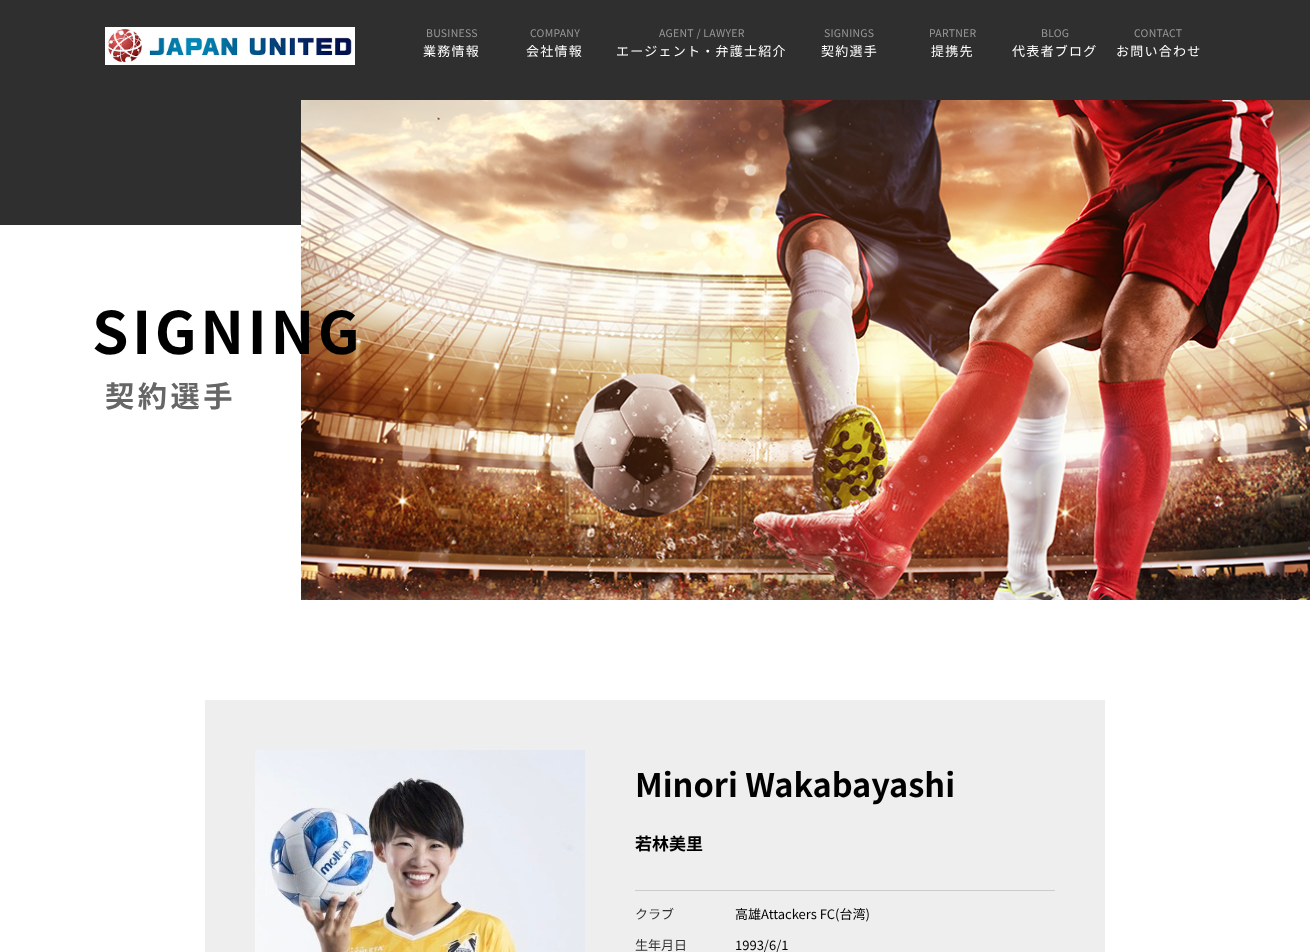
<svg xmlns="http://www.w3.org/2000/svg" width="1310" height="952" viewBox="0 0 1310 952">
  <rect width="100%" height="100%" fill="#fff"/>
  <path d="M0 0h1310v100H0z" fill="#2f2f2f"/>
  <image x="105" y="27" width="250" height="38" href="img/1.png"/>
  <path d="M0 100h301v125H0z" fill="#2f2f2f"/>
  <image x="301" y="100" width="1009" height="500" href="img/2.png"/>
  <path d="M205 700h900v252H205z" fill="#eee"/>
  <image x="255" y="750" width="330" height="202" href="img/3.png"/>
  <path d="M635 890h420v1H635z" fill="#ccc"/>
  <text x="426" y="37" font-family="Noto Sans JP" font-size="10.5" letter-spacing="0.25" fill="#999">BUSINESS</text>
  <text x="423" y="56" font-family="Noto Sans JP" font-size="13" letter-spacing="1.25" fill="#fff">業務情報</text>
  <text x="530" y="37" font-family="Noto Sans JP" font-size="10.5" letter-spacing="0.25" fill="#999">COMPANY</text>
  <text x="526" y="56" font-family="Noto Sans JP" font-size="13" letter-spacing="1.25" fill="#fff">会社情報</text>
  <text x="659" y="37" font-family="Noto Sans JP" font-size="10.5" letter-spacing="0.25" fill="#999">AGENT / LAWYER</text>
  <text x="616" y="56" font-family="Noto Sans JP" font-size="13" letter-spacing="1.25" fill="#fff">エージェント・弁護士紹介</text>
  <text x="824" y="37" font-family="Noto Sans JP" font-size="10.5" letter-spacing="0.25" fill="#999">SIGNINGS</text>
  <text x="821" y="56" font-family="Noto Sans JP" font-size="13" letter-spacing="1.25" fill="#fff">契約選手</text>
  <text x="929" y="37" font-family="Noto Sans JP" font-size="10.5" letter-spacing="0.25" fill="#999">PARTNER</text>
  <text x="931" y="56" font-family="Noto Sans JP" font-size="13" letter-spacing="1.25" fill="#fff">提携先</text>
  <text x="1041" y="37" font-family="Noto Sans JP" font-size="10.5" letter-spacing="0.25" fill="#999">BLOG</text>
  <text x="1012" y="56" font-family="Noto Sans JP" font-size="13" letter-spacing="1.25" fill="#fff">代表者ブログ</text>
  <text x="1134" y="37" font-family="Noto Sans JP" font-size="10.5" letter-spacing="0.25" fill="#999">CONTACT</text>
  <text x="1116" y="56" font-family="Noto Sans JP" font-size="13" letter-spacing="1.25" fill="#fff">お問い合わせ</text>
  <text x="92" y="354" font-family="Noto Sans JP" font-size="58.5" font-weight="bold" letter-spacing="3.5" fill="#000">SIGNING</text>
  <text x="105" y="407" font-family="Noto Sans JP" font-size="29.25" font-weight="bold" letter-spacing="3.5" fill="#666">契約選手</text>
  <text x="635" y="797" font-family="Noto Sans JP" font-size="32.5" font-weight="bold" fill="#000">Minori Wakabayashi</text>
  <text x="635" y="850" font-family="Noto Sans JP" font-size="17" font-weight="bold" fill="#000">若林美里</text>
  <text x="635" y="919" font-family="Noto Sans JP" font-size="13" fill="#333">クラブ</text>
  <text x="735" y="919" font-family="Noto Sans JP" font-size="13" fill="#000">高雄Attackers FC(台湾)</text>
  <text x="635" y="950" font-family="Noto Sans JP" font-size="13" fill="#333">生年月日</text>
  <text x="735" y="950" font-family="Noto Sans JP" font-size="13" fill="#000">1993/6/1</text>
</svg>
